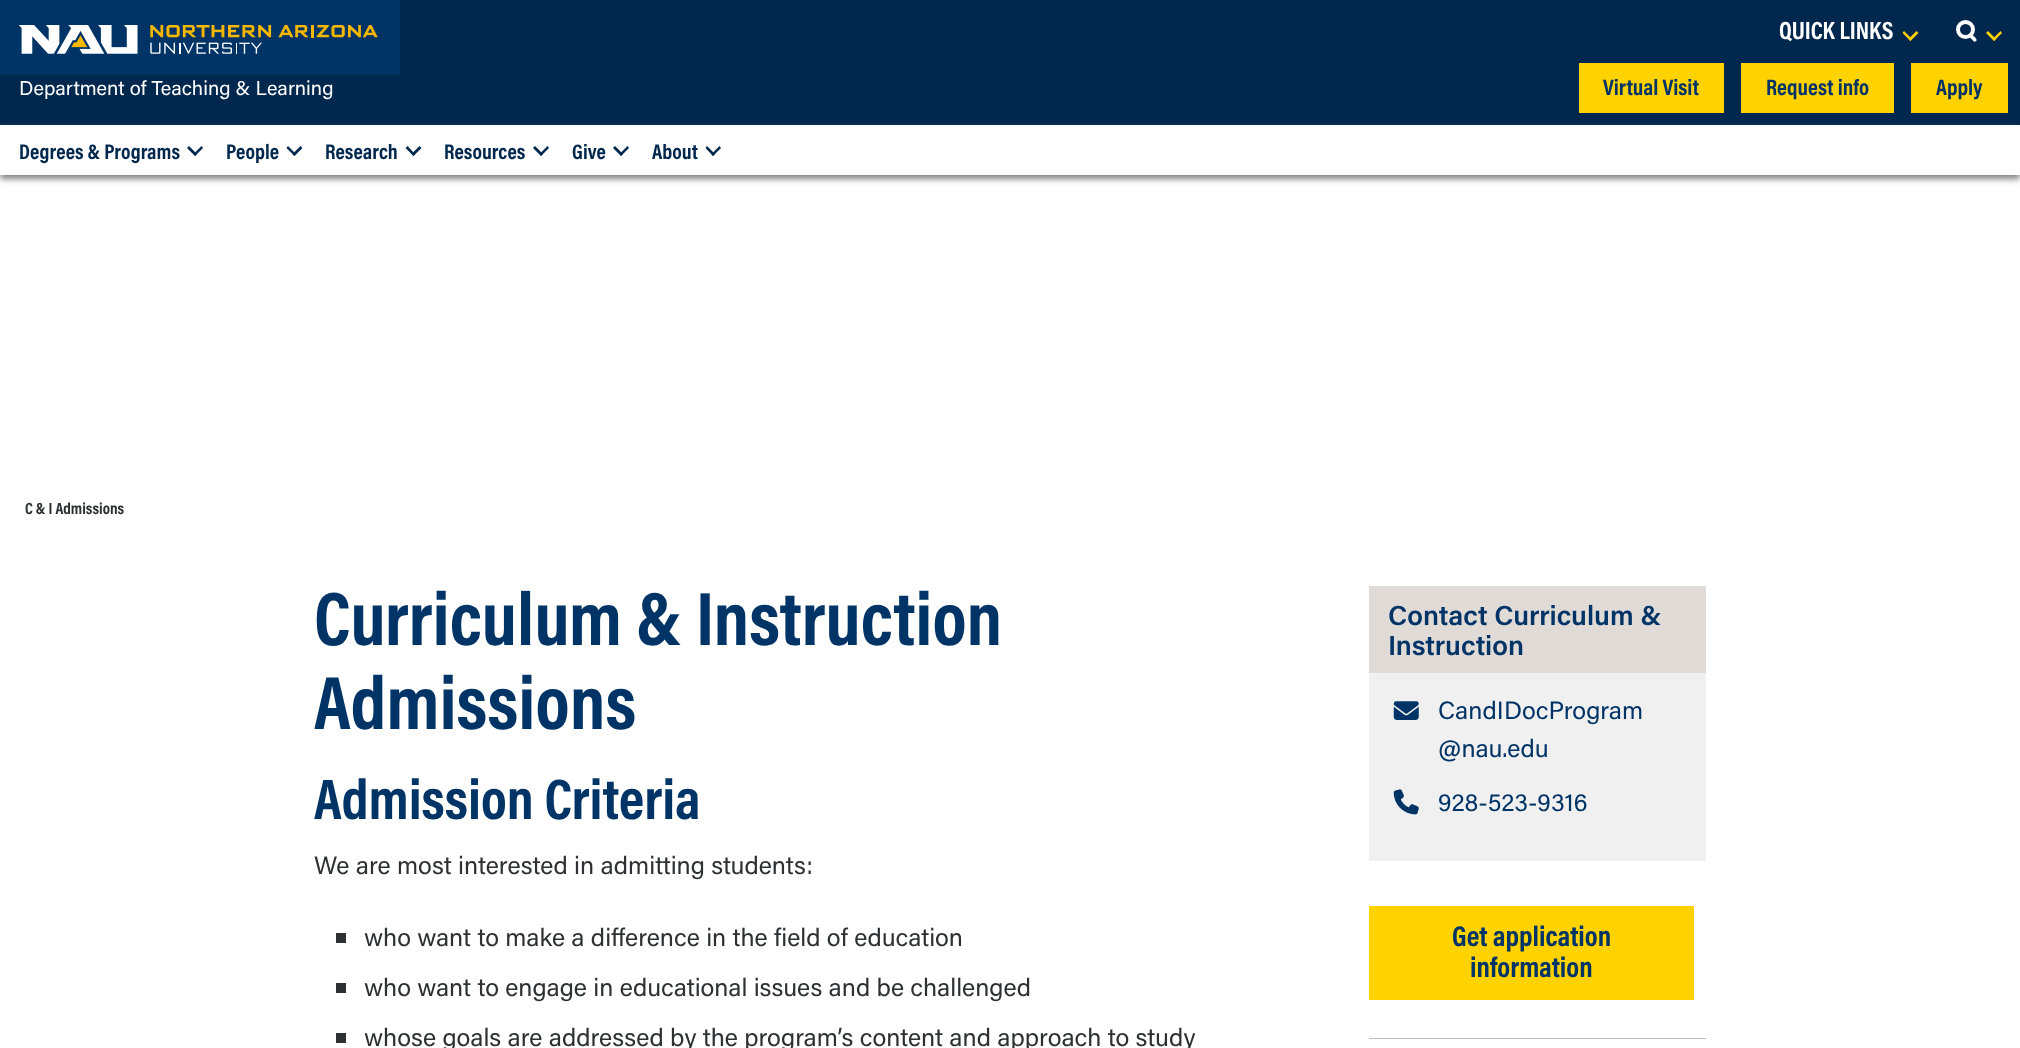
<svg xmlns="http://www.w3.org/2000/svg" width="2020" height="1048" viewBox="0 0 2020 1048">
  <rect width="100%" height="100%" fill="#fff"/>
  <path d="M400 0h1620v50H400z" fill="#00274d"/>
  <path d="M0 50h2020v75H0z" fill="#00274d"/>
  <path d="M0 0h400v75H0z" fill="#003466"/>
  <image x="18" y="25" width="360" height="29" href="img/1.png"/>
  <path d="M1916.5 31L1918.5 33L1910.5 41L1908.5 39Z" fill="#ffd200"/>
  <path d="M1904 31L1912 39L1910.5 41L1902.5 33Z" fill="#ffd200"/>
  <circle cx="1965.5" cy="29.5" r="7.5" fill="none" stroke="#fff" stroke-width="4"/>
  <path d="M1972.5 35C1973.5 36 1979 40 1975.5 41.5C1974 42 1973 41 1972.5 40L1969.5 37C1969 35 1971 33.5 1972.5 35Z" fill="#fff"/>
  <path d="M2000.5 31L2002 33L1994 41L1992.5 39Z" fill="#ffd200"/>
  <path d="M1988 31L1996 39L1994 41L1986 33Z" fill="#ffd200"/>
  <path d="M1579 63h145v50H1579z" fill="#ffd200"/>
  <path d="M1741 63h153v50H1741z" fill="#ffd200"/>
  <path d="M1911 63h97v50H1911z" fill="#ffd200"/>
  <path d="M0 129h2020v50H0z" fill="#808080" filter="blur(3px)"/>
  <path d="M0 125h2020v50H0z" fill="#fff"/>
  <path d="M201.5 146L203 148L195 156L193.5 154Z" fill="#00274d"/>
  <path d="M189 146L197 154L195 156L187 148Z" fill="#00274d"/>
  <path d="M300.5 146L302.5 148L294.5 156L292.5 154Z" fill="#00274d"/>
  <path d="M288 146L296 154L294.5 156L286.5 148Z" fill="#00274d"/>
  <path d="M419.5 146L421.5 148L413.5 156L411.5 154Z" fill="#00274d"/>
  <path d="M407.5 146L415 154L413.5 156L405.5 148Z" fill="#00274d"/>
  <path d="M547.5 146L549 148L541 156L539.5 154Z" fill="#00274d"/>
  <path d="M535 146L543 154L541 156L533 148Z" fill="#00274d"/>
  <path d="M627.5 146L629 148L621 156L619.5 154Z" fill="#00274d"/>
  <path d="M615 146L623 154L621 156L613 148Z" fill="#00274d"/>
  <path d="M719.5 146L721 148L713 156L711.5 154Z" fill="#00274d"/>
  <path d="M707 146L715 154L713 156L705.5 148Z" fill="#00274d"/>
  <path d="M336 933h10v10H336z" fill="#2f3034"/>
  <path d="M336 983h10v10H336z" fill="#2f3034"/>
  <path d="M336 1033h10v10H336z" fill="#2f3034"/>
  <path d="M1369 586h337v87H1369z" fill="#e1dbd8"/>
  <path d="M1369 673h337v188H1369z" fill="#f0f0f0"/>
  <image x="1393" y="701" width="26" height="19" href="img/2.png"/>
  <image x="1393" y="789" width="26" height="26" href="img/3.png"/>
  <path d="M1369 906h325v94H1369z" fill="#ffd200"/>
  <path d="M1369 1038h337v1H1369z" fill="#c3b8b2"/>
  <text x="1779" y="39" font-family="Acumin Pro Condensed" font-size="25" font-weight="bold" fill="#fff">QUICK LINKS</text>
  <text x="19" y="95" font-family="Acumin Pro" font-size="20" fill="#fff">Department of Teaching &amp; Learning</text>
  <g font-family="Acumin Pro Condensed" font-size="22.5" font-weight="bold" fill="#003466">
    <text x="1603" y="95">Virtual Visit</text>
    <text x="1766" y="95">Request info</text>
    <text x="1936" y="95">Apply</text>
  </g>
  <g font-family="Acumin Pro Condensed" font-size="21.25" font-weight="bold" fill="#00274d">
    <text x="19" y="159">Degrees &amp; Programs</text>
    <text x="226" y="159">People</text>
    <text x="325" y="159">Research</text>
    <text x="444" y="159">Resources</text>
    <text x="572" y="159">Give</text>
    <text x="652" y="159">About</text>
  </g>
  <text x="25" y="514" font-family="Acumin Pro Condensed" font-size="16.25" font-weight="bold" fill="#2f3034">C &amp; I Admissions</text>
  <g font-family="Acumin Pro Condensed" font-size="76.25" font-weight="bold" fill="#003466">
    <text x="314" y="645">Curriculum &amp; Instruction</text>
    <text x="314" y="729">Admissions</text>
  </g>
  <text x="314" y="819" font-family="Acumin Pro Condensed" font-size="57.5" font-weight="bold" fill="#003466">Admission Criteria</text>
  <g font-family="Acumin Pro" font-size="25" fill="#2f3034">
    <text x="314" y="874">We are most interested in admitting students:</text>
    <text x="364" y="946">who want to make a difference in the field of education</text>
    <text x="364" y="996">who want to engage in educational issues and be challenged</text>
    <text x="364" y="1046">whose goals are addressed by the program’s content and approach to study</text>
  </g>
  <g font-family="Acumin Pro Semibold" font-size="27.5" font-weight="600" fill="#003466">
    <text x="1388" y="625">Contact Curriculum &amp;</text>
    <text x="1388" y="655">Instruction</text>
  </g>
  <g font-family="Acumin Pro" font-size="25" fill="#003466">
    <text x="1438" y="719">CandIDocProgram</text>
    <text x="1438" y="757">@nau.edu</text>
    <text x="1438" y="811">928-523-9316</text>
  </g>
  <g font-family="Acumin Pro Condensed" font-size="28.75" font-weight="bold" fill="#003466">
    <text x="1452" y="946">Get application</text>
    <text x="1470" y="977">information</text>
  </g>
</svg>
